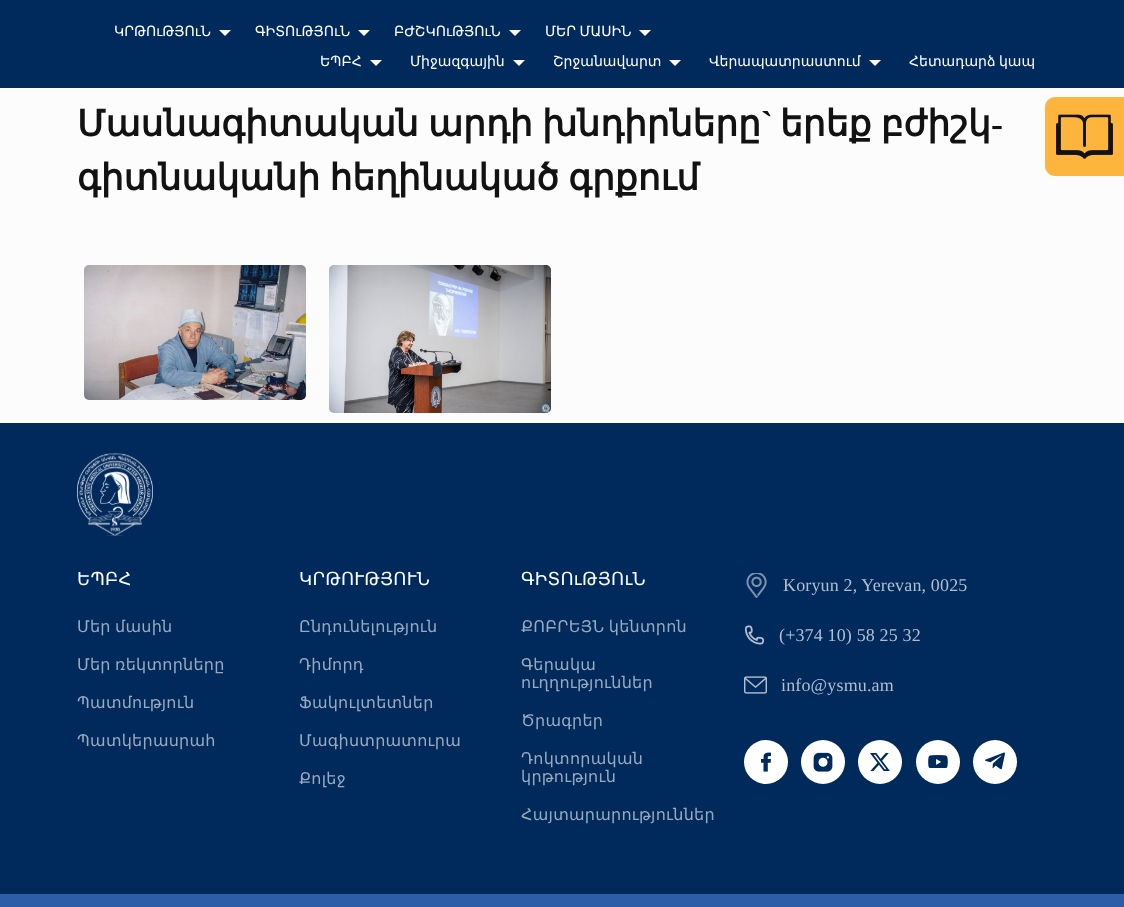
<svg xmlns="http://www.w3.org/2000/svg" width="1124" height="907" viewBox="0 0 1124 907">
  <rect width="100%" height="100%" fill="#fcfcfc"/>
  <path d="M0 0h1124v88H0z" fill="#00295c"/>
  <path d="M0 88h1124v2H0z" fill="#fff"/>
  <path d="M219 30H231L225 36Z" fill="#fff"/>
  <path d="M358 30H370L364 36Z" fill="#fff"/>
  <path d="M509 30H521L515 36Z" fill="#fff"/>
  <path d="M639 30H651L645 36Z" fill="#fff"/>
  <path d="M370 60H382L376 66Z" fill="#fff"/>
  <path d="M513 60H525L519 66Z" fill="#fff"/>
  <path d="M669 60H681L675 66Z" fill="#fff"/>
  <path d="M869 60H881L875 66Z" fill="#fff"/>
  <path d="M1055 97H1124V176H1055C1049.5 176 1045 171.5 1045 166V107C1045 101.5 1049.5 97 1055 97Z" fill="#fdb53e"/>
  <image x="1056" y="114" width="57" height="45" href="img/1.png"/>
  <image x="84" y="265" width="222" height="135" href="img/2.png"/>
  <image x="329" y="265" width="222" height="148" href="img/3.png"/>
  <path d="M0 423h1124v471H0z" fill="#00295c"/>
  <image x="77" y="453" width="76" height="83" href="img/4.png"/>
  <image x="746" y="573" width="21" height="25" href="img/5.png"/>
  <image x="745" y="625" width="19" height="20" href="img/6.png"/>
  <image x="744" y="676" width="23" height="18" href="img/7.png"/>
  <circle cx="766" cy="762" r="22" fill="#fff"/>
  <image x="761" y="752" width="10" height="20" href="img/8.png"/>
  <circle cx="823" cy="762" r="22" fill="#fff"/>
  <image x="813" y="752" width="20" height="20" href="img/9.png"/>
  <circle cx="880" cy="762" r="22" fill="#fff"/>
  <image x="870" y="753" width="20" height="18" href="img/10.png"/>
  <circle cx="938" cy="762" r="22" fill="#fff"/>
  <image x="928" y="755" width="20" height="13" href="img/11.png"/>
  <circle cx="995" cy="762" r="22" fill="#fff"/>
  <image x="985" y="752" width="20" height="18" href="img/12.png"/>
  <path d="M0 894h1124v13H0z" fill="#2e5da8"/>
  <g font-family="DejaVu Sans" font-size="14" fill="#fff">
    <text x="114" y="36">ԿՐԹՈւԹՅՈւՆ</text>
    <text x="255" y="36">ԳԻՏՈւԹՅՈւՆ</text>
    <text x="394" y="36">ԲԺՇԿՈւԹՅՈւՆ</text>
    <text x="545" y="36" word-spacing="-1">ՄԵՐ ՄԱՍԻՆ</text>
    <text x="320" y="66">ԵՊԲՀ</text>
    <text x="410" y="66">Միջազգային</text>
    <text x="553" y="66">Շրջանավարտ</text>
    <text x="709" y="66">Վերապատրաստում</text>
    <text x="909" y="66" word-spacing="-1">Հետադարձ կապ</text>
  </g>
  <text x="77" y="136" word-spacing="-2" font-family="DejaVu Sans" font-size="36" font-weight="bold" fill="#121212">Մասնագիտական արդի խնդիրները</text>
  <text x="761" y="136" font-family="Liberation Serif" font-size="36" font-weight="bold" fill="#121212">`</text>
  <text x="780" y="136" word-spacing="-2" font-family="DejaVu Sans" font-size="36" font-weight="bold" fill="#121212">երեք բժիշկ</text>
  <text x="991" y="136" font-family="Liberation Serif" font-size="36" font-weight="bold" fill="#121212">-</text>
  <text x="77" y="190" word-spacing="-2" font-family="DejaVu Sans" font-size="36" font-weight="bold" fill="#121212">գիտնականի հեղինակած գրքում</text>
  <text x="77" y="585" font-family="DejaVu Sans" font-size="18" letter-spacing="0.25" fill="#fff">ԵՊԲՀ</text>
  <g font-family="DejaVu Sans" font-size="16" letter-spacing="0.25" fill="#99a9be">
    <text x="77" y="632" word-spacing="-1">Մեր մասին</text>
    <text x="77" y="670" word-spacing="-1">Մեր ռեկտորները</text>
    <text x="77" y="708">Պատմություն</text>
    <text x="77" y="746">Պատկերասրահ</text>
  </g>
  <text x="299" y="585" font-family="DejaVu Sans" font-size="18" letter-spacing="0.25" fill="#fff">ԿՐԹՈՒԹՅՈՒՆ</text>
  <g font-family="DejaVu Sans" font-size="16" letter-spacing="0.25" fill="#99a9be">
    <text x="299" y="632">Ընդունելություն</text>
    <text x="299" y="670">Դիմորդ</text>
    <text x="299" y="708">Ֆակուլտետներ</text>
    <text x="299" y="746">Մագիստրատուրա</text>
    <text x="299" y="784">Քոլեջ</text>
  </g>
  <text x="521" y="585" font-family="DejaVu Sans" font-size="18" letter-spacing="0.25" fill="#fff">ԳԻՏՈւԹՅՈւՆ</text>
  <g font-family="DejaVu Sans" font-size="16" letter-spacing="0.25" fill="#99a9be">
    <text x="521" y="632" word-spacing="-1">ՔՈԲՐԵՅՆ կենտրոն</text>
    <text x="521" y="670">Գերակա</text>
    <text x="521" y="688">ուղղություններ</text>
    <text x="521" y="726">Ծրագրեր</text>
    <text x="521" y="764">Դոկտորական</text>
    <text x="521" y="782">կրթություն</text>
    <text x="521" y="820">Հայտարարություններ</text>
  </g>
  <g font-family="Liberation Serif" font-size="18" letter-spacing="0.15" fill="#b3bfce">
    <text x="783" y="591">Koryun 2, Yerevan, 0025</text>
    <text x="779" y="641">(+374 10) 58 25 32</text>
    <text x="781" y="691">info@ysmu.am</text>
  </g>
</svg>
